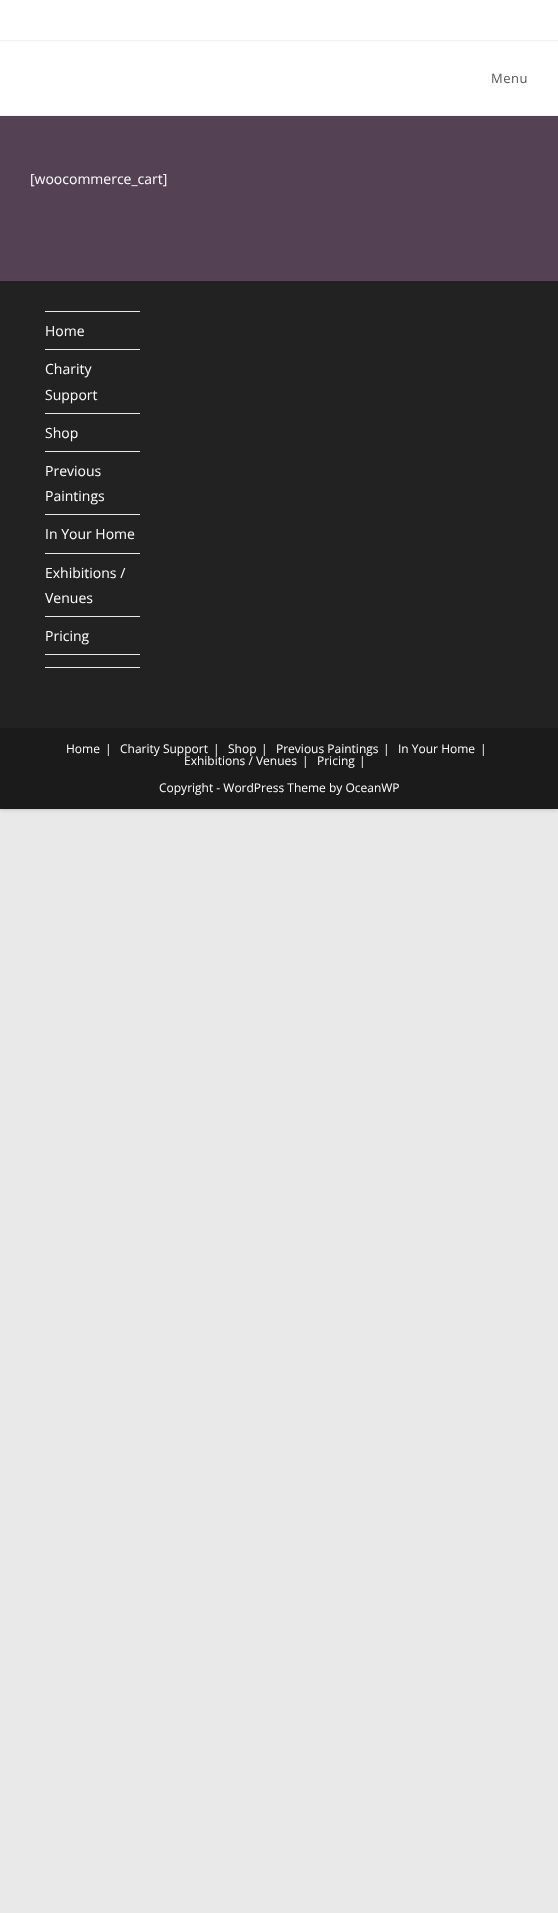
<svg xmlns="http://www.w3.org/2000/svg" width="558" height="1913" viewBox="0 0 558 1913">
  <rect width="100%" height="100%" fill="#e9e9e9"/>
  <path d="M0 1h558v809H0z" fill="#00000026" filter="blur(2px)"/>
  <path d="M0 116h558v165H0z" fill="#544153"/>
  <path d="M0 0h558v40H0z" fill="#fff"/>
  <path d="M0 40h558v1H0z" fill="#f1f1f1"/>
  <path d="M0 41h558v74H0z" fill="#fff"/>
  <path d="M0 115h558v1H0z" fill="#f1f1f1"/>
  <path d="M0 281h558v447H0z" fill="#222"/>
  <path d="M45 311h95v1H45z" fill="#e9e9e9"/>
  <path d="M45 349h95v1H45z" fill="#e9e9e9"/>
  <path d="M45 413h95v1H45z" fill="#e9e9e9"/>
  <path d="M45 451h95v1H45z" fill="#e9e9e9"/>
  <path d="M45 514h95v1H45z" fill="#e9e9e9"/>
  <path d="M45 553h95v1H45z" fill="#e9e9e9"/>
  <path d="M45 616h95v1H45z" fill="#e9e9e9"/>
  <path d="M45 654h95v1H45z" fill="#e9e9e9"/>
  <path d="M45 667h95v1H45z" fill="#e9e9e9"/>
  <path d="M0 728h558v81H0z" fill="#1b1b1b"/>
  <text x="491" y="83" font-family="Open Sans" font-size="13" letter-spacing="0.5" fill="#555">Menu</text>
  <g font-family="Open Sans" font-size="14" fill="#fff">
    <text x="30" y="184">[woocommerce_cart]</text>
    <text x="45" y="336">Home</text>
    <text x="45" y="374">Charity</text>
    <text x="45" y="400">Support</text>
    <text x="45" y="438">Shop</text>
    <text x="45" y="476">Previous</text>
    <text x="45" y="501">Paintings</text>
    <text x="45" y="539">In Your Home</text>
    <text x="45" y="578">Exhibitions /</text>
    <text x="45" y="603">Venues</text>
    <text x="45" y="641">Pricing</text>
  </g>
  <g font-family="Open Sans" font-size="12" fill="#fff">
    <text x="66" y="753">Home</text>
    <text x="105" y="753">|</text>
    <text x="120" y="753">Charity Support</text>
    <text x="213" y="753">|</text>
    <text x="228" y="753">Shop</text>
    <text x="261" y="753">|</text>
    <text x="276" y="753">Previous Paintings</text>
    <text x="383" y="753">|</text>
    <text x="398" y="753">In Your Home</text>
    <text x="480" y="753">|</text>
    <text x="184" y="765">Exhibitions / Venues</text>
    <text x="302" y="765">|</text>
    <text x="317" y="765">Pricing</text>
    <text x="359" y="765">|</text>
    <text x="159" y="792">Copyright - WordPress Theme by OceanWP</text>
  </g>
</svg>
